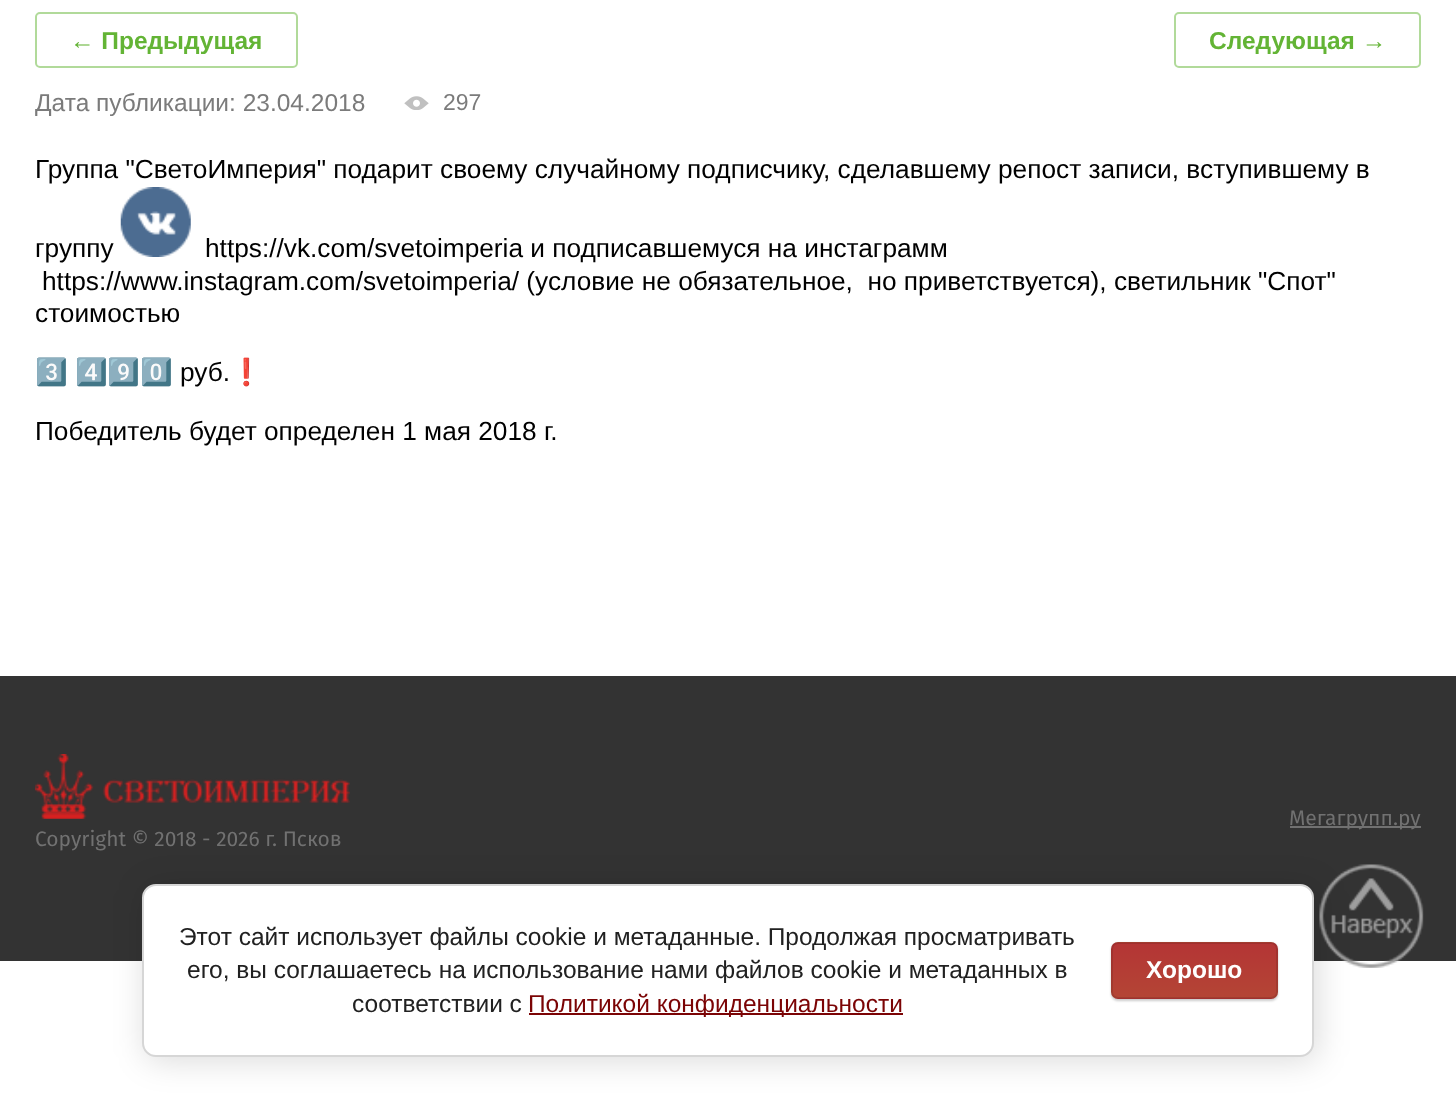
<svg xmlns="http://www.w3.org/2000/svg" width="1456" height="1113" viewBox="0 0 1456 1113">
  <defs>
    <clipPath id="clip1"><rect x="1111" y="942" width="167" height="57" rx="7"/></clipPath>
    <linearGradient id="g1" gradientUnits="userSpaceOnUse" x1="1194" y1="889" x2="1194" y2="943"><stop offset="0" stop-color="#b43535"/><stop offset="1" stop-color="#b44535"/></linearGradient>
    <linearGradient id="g2" gradientUnits="userSpaceOnUse" x1="1194" y1="943" x2="1194" y2="998"><stop offset="0" stop-color="#b43535"/><stop offset="1" stop-color="#b44535"/></linearGradient>
    <linearGradient id="g3" gradientUnits="userSpaceOnUse" x1="1194" y1="998" x2="1194" y2="1052"><stop offset="0" stop-color="#b43535"/><stop offset="1" stop-color="#b44535"/></linearGradient>
  </defs>
  <rect width="100%" height="100%" fill="#fff"/>
  <rect x="36" y="13" width="261" height="54" rx="4" fill="none" stroke="#b1da9a" stroke-width="2"/>
  <rect x="1175" y="13" width="245" height="54" rx="4" fill="none" stroke="#b1da9a" stroke-width="2"/>
  <image x="404" y="96" width="25" height="14" href="img/1.png"/>
  <image x="120" y="187" width="71" height="70" href="img/2.png"/>
  <path d="M0 676h1456v285H0z" fill="#333"/>
  <path d="M1290 826h131v2H1290z" fill="#717171"/>
  <image x="35" y="754" width="315" height="65" href="img/3.png"/>
  <image x="1319" y="864" width="105" height="104" href="img/4.png"/>
  <rect x="145" y="887" width="1173" height="174" rx="14" fill="#00000024" filter="blur(16px)"/>
  <rect x="143" y="885" width="1170" height="171" rx="13" fill="#fff" stroke="#d6d6d6" stroke-width="2"/>
  <path d="M529 1013h374v2H529z" fill="#7b0405"/>
  <rect x="1111" y="943" width="167" height="58" rx="7" fill="#00000033" filter="blur(1px)"/>
  <g clip-path="url(#clip1)">
    <path d="M1111 942h167v1H1111z" fill="url(#g1)"/>
    <path d="M1111 943h167v55H1111z" fill="url(#g2)"/>
    <path d="M1111 998h167v1H1111z" fill="url(#g3)"/>
  </g>
  <rect x="1112" y="943" width="165" height="55" rx="6" fill="none" stroke="#0000001a" stroke-width="2"/>
  <g font-family="Liberation Sans" font-size="24.5" font-weight="bold" fill="#63b435">
    <text x="70" y="49">← Предыдущая</text>
    <text x="1209" y="49">Следующая →</text>
  </g>
  <text x="35" y="111" font-family="Liberation Sans" font-size="24.5" fill="#7b7b7b">Дата публикации: 23.04.2018</text>
  <text x="443" y="110" font-family="Liberation Sans" font-size="23" fill="#7b7b7b">297</text>
  <g font-family="Liberation Sans" font-size="26.25" fill="#000">
    <text x="35" y="178">Группа "СветоИмперия" подарит своему случайному подписчику, сделавшему репост записи, вступившему в</text>
    <text x="35" y="257">группу</text>
    <text x="205" y="257">https://vk.com/svetoimperia и подписавшемуся на инстаграмм</text>
    <text x="42" y="290" xml:space="preserve">https://www.instagram.com/svetoimperia/ (условие не обязательное,  но приветствуется), светильник "Спот"</text>
    <text x="35" y="322">стоимостью</text>
  </g>
  <g font-family="Noto Color Emoji" font-size="26.25" fill="#000">
    <text x="35" y="381">3️⃣</text>
    <text x="75" y="381">4️⃣9️⃣0️⃣</text>
  </g>
  <text x="180" y="381" font-family="Liberation Sans" font-size="26.25" fill="#000">руб.</text>
  <text x="230" y="381" font-family="Noto Color Emoji" font-size="26.25" fill="#000">❗️</text>
  <text x="35" y="440" font-family="Liberation Sans" font-size="26.25" fill="#000">Победитель будет определен 1 мая 2018 г.</text>
  <g font-family="Fira Sans" font-size="21" fill="#717171">
    <text x="1289" y="825">Мегагрупп.ру</text>
    <text x="35" y="846">Copyright © 2018 - 2026 г. Псков</text>
  </g>
  <g font-family="Liberation Sans" font-size="24.5" fill="#212121">
    <text x="179" y="945">Этот сайт использует файлы cookie и метаданные. Продолжая просматривать</text>
    <text x="187" y="978">его, вы соглашаетесь на использование нами файлов cookie и метаданных в</text>
    <text x="352" y="1012">соответствии c</text>
  </g>
  <text x="528" y="1012" font-family="Liberation Sans" font-size="24.5" fill="#7b0405">Политикой конфиденциальности</text>
  <text x="1146" y="978" font-family="Liberation Sans" font-size="24.5" font-weight="bold" fill="#fff">Хорошо</text>
</svg>
